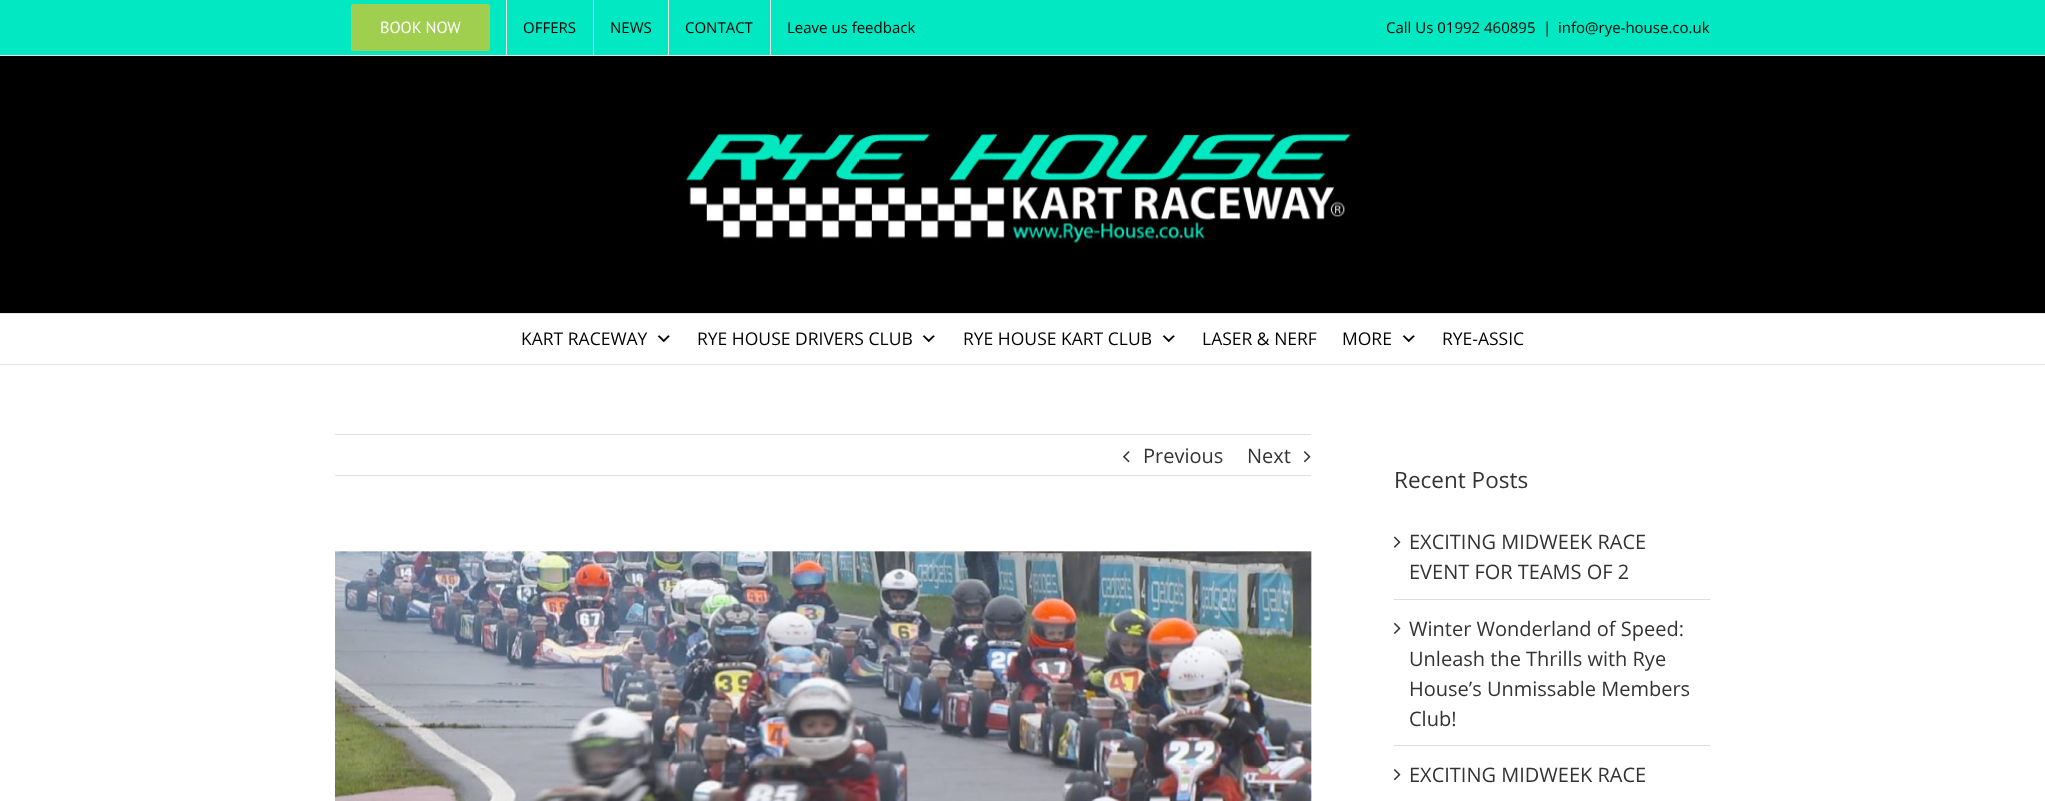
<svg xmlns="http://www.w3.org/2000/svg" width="2045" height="801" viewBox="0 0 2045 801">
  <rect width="100%" height="100%" fill="#fff"/>
  <path d="M0 0h2045v55H0z" fill="#01e8c2"/>
  <path d="M0 55h2045v1H0z" fill="#e5e5e5"/>
  <rect x="351" y="4" width="139" height="47" rx="2.5" fill="#a0ce4e"/>
  <path d="M506 0h1v55H506z" fill="#e5e5e5"/>
  <path d="M593 0h1v55H593z" fill="#e5e5e5"/>
  <path d="M668 0h1v55H668z" fill="#e5e5e5"/>
  <path d="M770 0h1v55H770z" fill="#e5e5e5"/>
  <path d="M0 56h2045v257H0z" fill="#000"/>
  <path d="M0 313h2045v1H0z" fill="#e5e5e5"/>
  <image x="682" y="128" width="670" height="116" href="img/1.png"/>
  <path d="M0 364h2045v1H0z" fill="#e5e5e5"/>
  <image x="657" y="335" width="13" height="8" href="img/2.png"/>
  <image x="922" y="335" width="13" height="8" href="img/2.png"/>
  <image x="1162" y="335" width="13" height="8" href="img/2.png"/>
  <image x="1402" y="335" width="13" height="8" href="img/2.png"/>
  <path d="M335 434h976v1H335z" fill="#e0dede"/>
  <path d="M335 475h976v1H335z" fill="#e0dede"/>
  <image x="1123" y="451" width="7" height="12" href="img/3.png"/>
  <image x="1303" y="451" width="8" height="12" href="img/4.png"/>
  <image x="335" y="551" width="977" height="250" href="img/5.png"/>
  <path d="M1394 599h316v1H1394z" fill="#e0dede"/>
  <image x="1393" y="536" width="8" height="12" href="img/6.png"/>
  <path d="M1394 745h316v1H1394z" fill="#e0dede"/>
  <image x="1393" y="622" width="8" height="12" href="img/7.png"/>
  <image x="1393" y="769" width="8" height="12" href="img/8.png"/>
  <text x="380" y="33" font-family="PT Sans" font-size="16.25" fill="#fff">BOOK NOW</text>
  <g font-family="Open Sans" font-size="15" fill="#000">
    <text x="523" y="33">OFFERS</text>
    <text x="610" y="33">NEWS</text>
    <text x="685" y="33">CONTACT</text>
    <text x="787" y="33">Leave us feedback</text>
    <text x="1386" y="33">Call Us 01992 460895</text>
    <text x="1543" y="33">|</text>
    <text x="1558" y="33">info@rye-house.co.uk</text>
  </g>
  <g font-family="Open Sans" font-size="17.5" fill="#000">
    <text x="521" y="345">KART RACEWAY</text>
    <text x="697" y="345">RYE HOUSE DRIVERS CLUB</text>
    <text x="963" y="345">RYE HOUSE KART CLUB</text>
    <text x="1202" y="345">LASER &amp; NERF</text>
    <text x="1342" y="345">MORE</text>
    <text x="1442" y="345">RYE-ASSIC</text>
  </g>
  <g font-family="Open Sans" font-size="20" fill="#333">
    <text x="1143" y="463">Previous</text>
    <text x="1247" y="463">Next</text>
  </g>
  <text x="1394" y="488" font-family="Open Sans" font-size="22.5" fill="#333">Recent Posts</text>
  <g font-family="Open Sans" font-size="20" fill="#333">
    <text x="1409" y="549">EXCITING MIDWEEK RACE</text>
    <text x="1409" y="579">EVENT FOR TEAMS OF 2</text>
    <text x="1409" y="636">Winter Wonderland of Speed:</text>
    <text x="1409" y="666">Unleash the Thrills with Rye</text>
    <text x="1409" y="696">House’s Unmissable Members</text>
    <text x="1409" y="726">Club!</text>
    <text x="1409" y="782">EXCITING MIDWEEK RACE</text>
  </g>
</svg>
